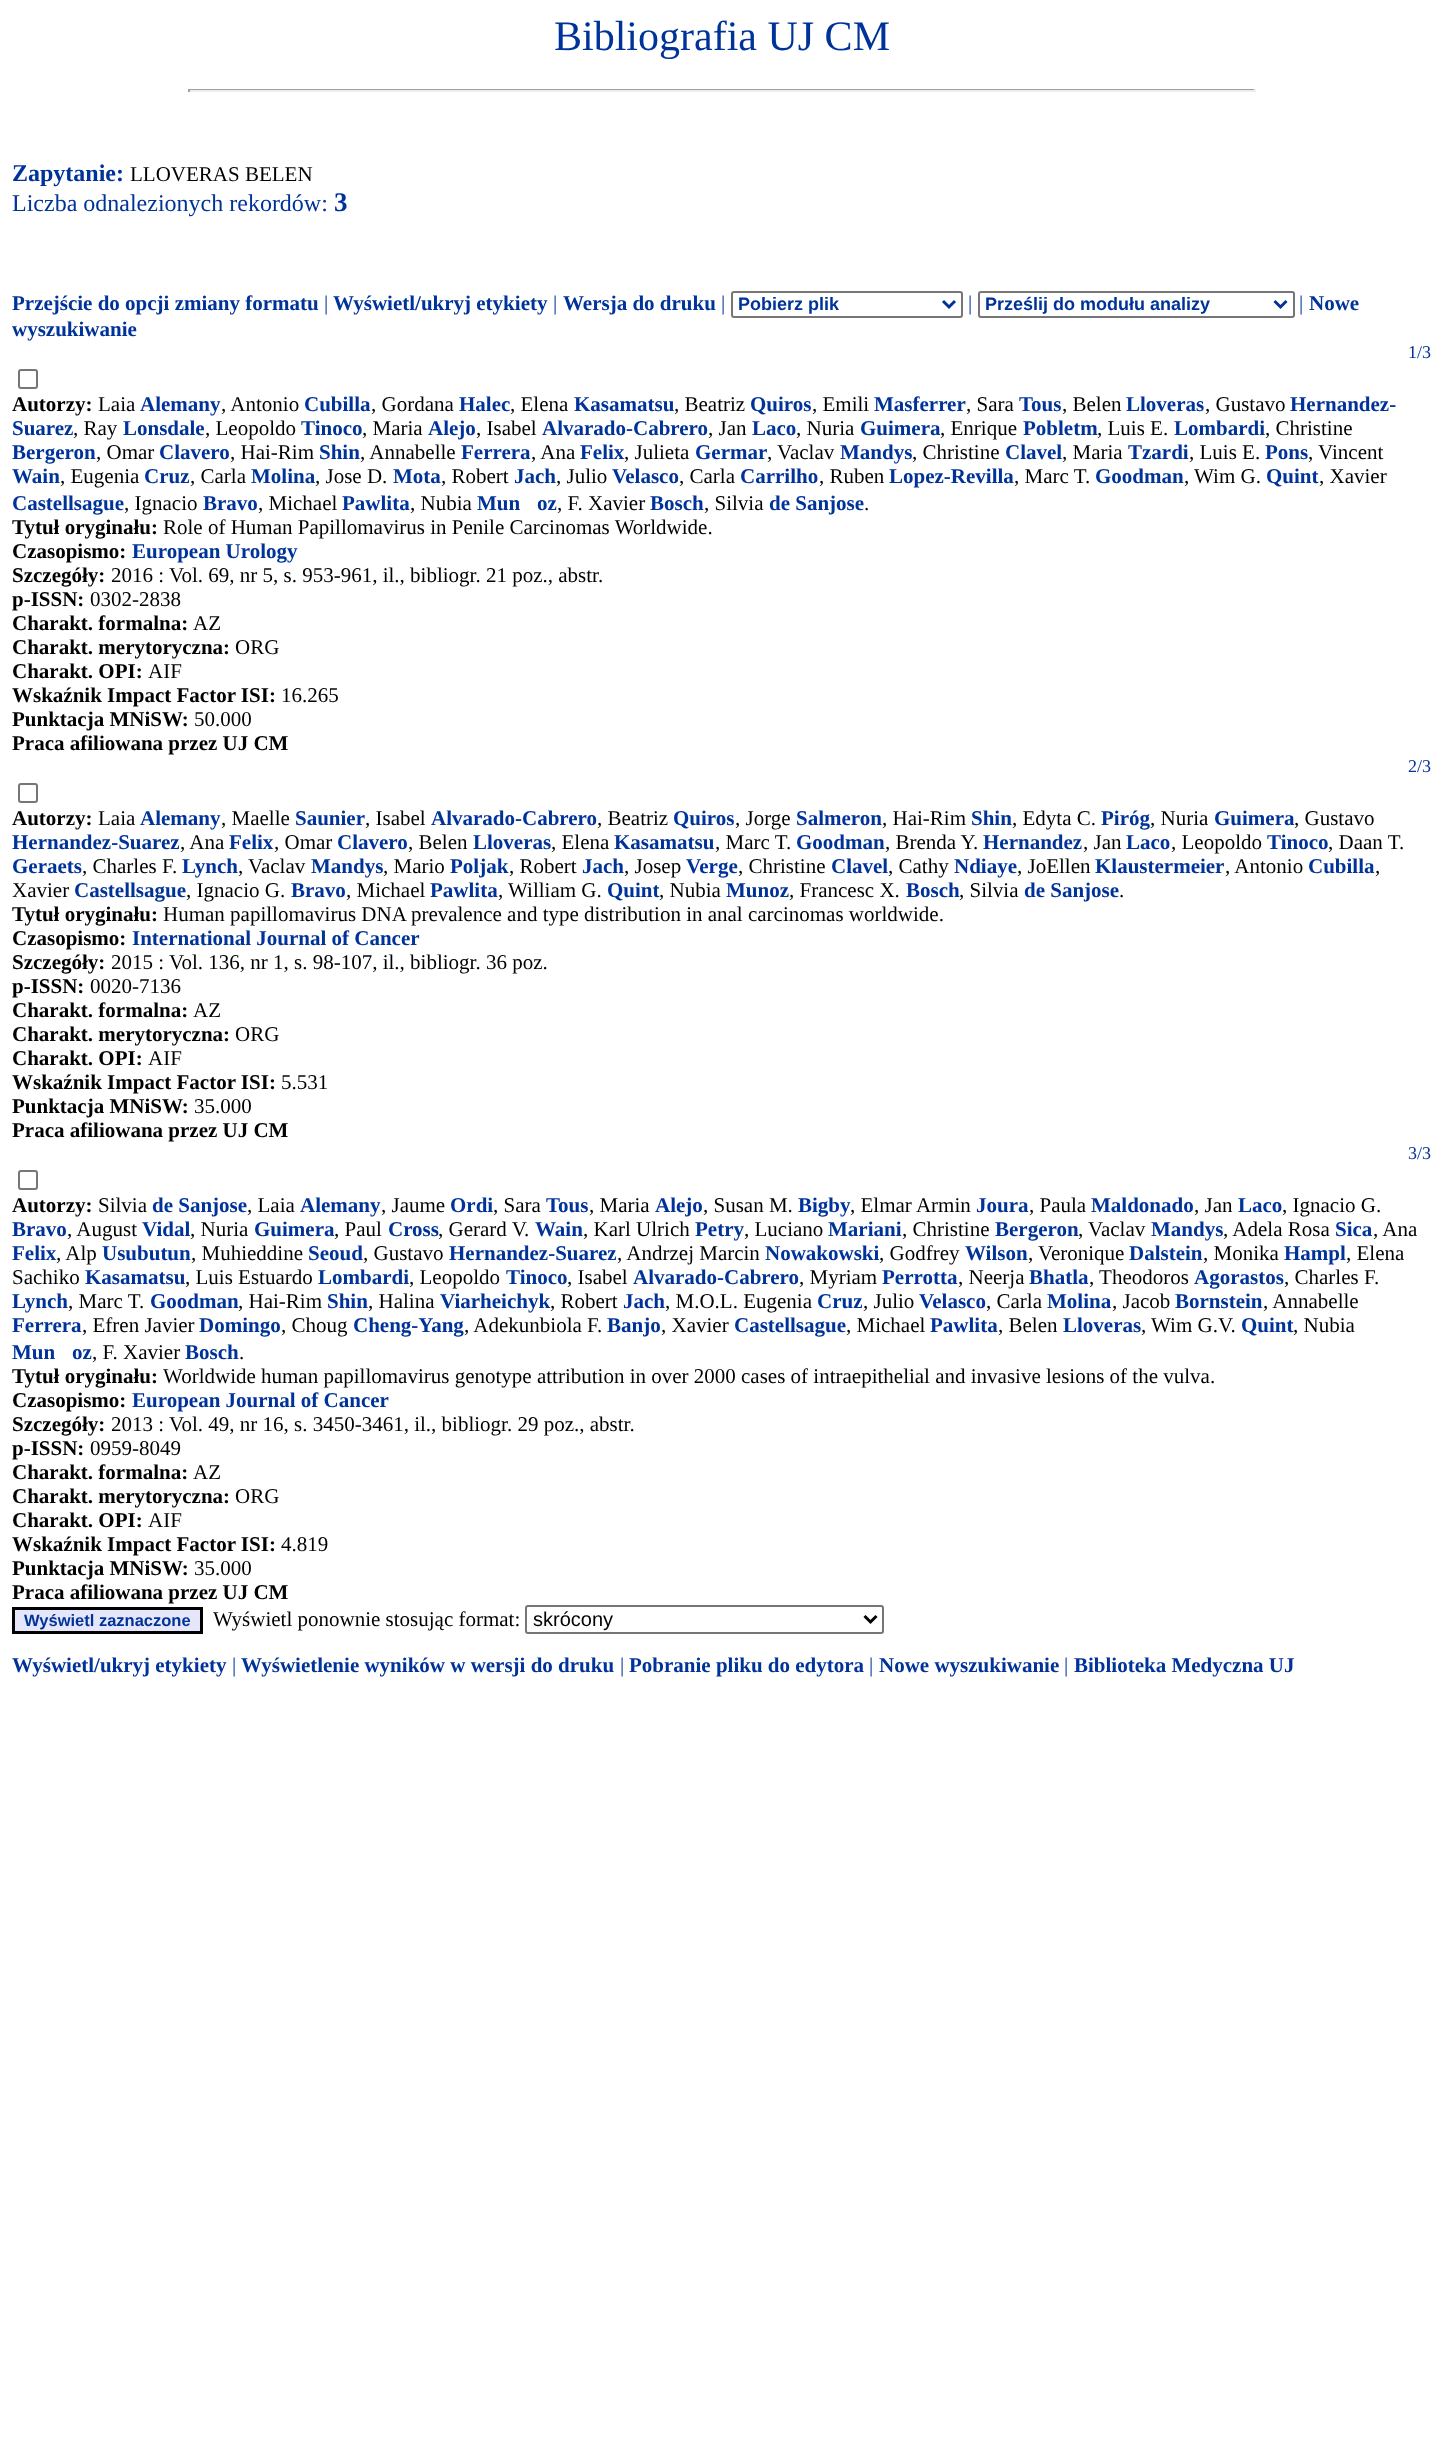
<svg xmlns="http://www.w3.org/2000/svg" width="1442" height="2441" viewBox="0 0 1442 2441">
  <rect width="100%" height="100%" fill="#fff"/>
  <path d="M188 89h1068v1H188z" fill="#9f9f9f"/>
  <path d="M1254 89h2v3H1254z" fill="#eee"/>
  <path d="M188 90h1068v2H188z" fill="#eee"/>
  <path d="M188 89h2v3H188z" fill="#9f9f9f"/>
  <rect x="732" y="292" width="230" height="25" rx="2" fill="none" stroke="#767676" stroke-width="2"/>
  <path d="M943 301L949 307L955 301" fill="none" stroke="#039" stroke-width="3"/>
  <rect x="979" y="292" width="315" height="25" rx="2" fill="none" stroke="#767676" stroke-width="2"/>
  <path d="M1274.5 301L1280.5 307L1286.5 301" fill="none" stroke="#039" stroke-width="3"/>
  <rect x="19" y="370" width="18" height="18" rx="2" fill="none" stroke="#767676" stroke-width="2"/>
  <rect x="19" y="784" width="18" height="18" rx="2" fill="none" stroke="#767676" stroke-width="2"/>
  <rect x="19" y="1171" width="18" height="18" rx="2" fill="none" stroke="#767676" stroke-width="2"/>
  <path d="M13.5 1608.5h188v24H13.5z" fill="#e6e6fa" stroke="#000" stroke-width="3"/>
  <rect x="526" y="1606" width="357" height="27" rx="2" fill="none" stroke="#767676" stroke-width="2"/>
  <path d="M864.5 1616L870.5 1622L876.5 1616" fill="none" stroke="#000" stroke-width="3"/>
  <text x="554" y="50" font-family="Liberation Serif" font-size="42" fill="#039">Bibliografia UJ CM</text>
  <text x="12" y="181" font-family="Liberation Serif" font-size="24" font-weight="bold" fill="#039">Zapytanie:</text>
  <text x="130" y="181" font-family="Liberation Serif" font-size="21" fill="#000">LLOVERAS BELEN</text>
  <text x="12" y="211" font-family="Liberation Serif" font-size="24" fill="#039">Liczba odnalezionych rekordów:</text>
  <text x="334" y="211" font-family="Liberation Serif" font-size="27" font-weight="bold" fill="#039">3</text>
  <text x="12" y="310" font-family="Liberation Serif" font-size="21" font-weight="bold" fill="#039">Przejście do opcji zmiany formatu</text>
  <text x="324" y="310" font-family="Liberation Serif" font-size="21" fill="#039">|</text>
  <text x="333" y="310" font-family="Liberation Serif" font-size="21" font-weight="bold" fill="#039">Wyświetl/ukryj etykiety</text>
  <text x="553" y="310" font-family="Liberation Serif" font-size="21" fill="#039">|</text>
  <text x="563" y="310" font-family="Liberation Serif" font-size="21" font-weight="bold" fill="#039">Wersja do druku</text>
  <text x="721" y="310" font-family="Liberation Serif" font-size="21" fill="#039">|</text>
  <text x="738" y="310" font-family="Liberation Sans" font-size="18" font-weight="bold" fill="#039">Pobierz plik</text>
  <text x="968" y="310" font-family="Liberation Serif" font-size="21" fill="#039">|</text>
  <text x="985" y="310" font-family="Liberation Sans" font-size="18" font-weight="bold" fill="#039">Prześlij do modułu analizy</text>
  <text x="1299" y="310" font-family="Liberation Serif" font-size="21" fill="#039">|</text>
  <g font-family="Liberation Serif" font-size="21" font-weight="bold" fill="#039">
    <text x="1309" y="310">Nowe</text>
    <text x="12" y="336">wyszukiwanie</text>
  </g>
  <text x="1408" y="358" font-family="Liberation Serif" font-size="18" fill="#039">1/3</text>
  <text x="12" y="411" font-family="Liberation Serif" font-size="21" font-weight="bold" fill="#000">Autorzy:</text>
  <text x="98" y="411" font-family="Liberation Serif" font-size="21" fill="#000">Laia</text>
  <text x="140" y="411" font-family="Liberation Serif" font-size="21" font-weight="bold" fill="#039">Alemany</text>
  <text x="221" y="411" font-family="Liberation Serif" font-size="21" fill="#000">, Antonio</text>
  <text x="304" y="411" font-family="Liberation Serif" font-size="21" font-weight="bold" fill="#039">Cubilla</text>
  <text x="371" y="411" font-family="Liberation Serif" font-size="21" fill="#000">, Gordana</text>
  <text x="459" y="411" font-family="Liberation Serif" font-size="21" font-weight="bold" fill="#039">Halec</text>
  <text x="510" y="411" font-family="Liberation Serif" font-size="21" fill="#000">, Elena</text>
  <text x="574" y="411" font-family="Liberation Serif" font-size="21" font-weight="bold" fill="#039">Kasamatsu</text>
  <text x="674" y="411" font-family="Liberation Serif" font-size="21" fill="#000">, Beatriz</text>
  <text x="750" y="411" font-family="Liberation Serif" font-size="21" font-weight="bold" fill="#039">Quiros</text>
  <text x="812" y="411" font-family="Liberation Serif" font-size="21" fill="#000">, Emili</text>
  <text x="874" y="411" font-family="Liberation Serif" font-size="21" font-weight="bold" fill="#039">Masferrer</text>
  <text x="966" y="411" font-family="Liberation Serif" font-size="21" fill="#000">, Sara</text>
  <text x="1019" y="411" font-family="Liberation Serif" font-size="21" font-weight="bold" fill="#039">Tous</text>
  <text x="1062" y="411" font-family="Liberation Serif" font-size="21" fill="#000">, Belen</text>
  <text x="1126" y="411" font-family="Liberation Serif" font-size="21" font-weight="bold" fill="#039">Lloveras</text>
  <text x="1205" y="411" font-family="Liberation Serif" font-size="21" fill="#000">, Gustavo</text>
  <g font-family="Liberation Serif" font-size="21" font-weight="bold" fill="#039">
    <text x="1290" y="411">Hernandez-</text>
    <text x="12" y="435">Suarez</text>
  </g>
  <text x="73" y="435" font-family="Liberation Serif" font-size="21" fill="#000">, Ray</text>
  <text x="123" y="435" font-family="Liberation Serif" font-size="21" font-weight="bold" fill="#039">Lonsdale</text>
  <text x="205" y="435" font-family="Liberation Serif" font-size="21" fill="#000">, Leopoldo</text>
  <text x="301" y="435" font-family="Liberation Serif" font-size="21" font-weight="bold" fill="#039">Tinoco</text>
  <text x="362" y="435" font-family="Liberation Serif" font-size="21" fill="#000">, Maria</text>
  <text x="428" y="435" font-family="Liberation Serif" font-size="21" font-weight="bold" fill="#039">Alejo</text>
  <text x="476" y="435" font-family="Liberation Serif" font-size="21" fill="#000">, Isabel</text>
  <text x="542" y="435" font-family="Liberation Serif" font-size="21" font-weight="bold" fill="#039">Alvarado-Cabrero</text>
  <text x="708" y="435" font-family="Liberation Serif" font-size="21" fill="#000">, Jan</text>
  <text x="752" y="435" font-family="Liberation Serif" font-size="21" font-weight="bold" fill="#039">Laco</text>
  <text x="796" y="435" font-family="Liberation Serif" font-size="21" fill="#000">, Nuria</text>
  <text x="860" y="435" font-family="Liberation Serif" font-size="21" font-weight="bold" fill="#039">Guimera</text>
  <text x="940" y="435" font-family="Liberation Serif" font-size="21" fill="#000">, Enrique</text>
  <text x="1023" y="435" font-family="Liberation Serif" font-size="21" font-weight="bold" fill="#039">Pobletm</text>
  <text x="1097" y="435" font-family="Liberation Serif" font-size="21" fill="#000">, Luis E.</text>
  <text x="1174" y="435" font-family="Liberation Serif" font-size="21" font-weight="bold" fill="#039">Lombardi</text>
  <text x="1265" y="435" font-family="Liberation Serif" font-size="21" fill="#000">, Christine</text>
  <text x="12" y="459" font-family="Liberation Serif" font-size="21" font-weight="bold" fill="#039">Bergeron</text>
  <text x="96" y="459" font-family="Liberation Serif" font-size="21" fill="#000">, Omar</text>
  <text x="159" y="459" font-family="Liberation Serif" font-size="21" font-weight="bold" fill="#039">Clavero</text>
  <text x="230" y="459" font-family="Liberation Serif" font-size="21" fill="#000">, Hai-Rim</text>
  <text x="319" y="459" font-family="Liberation Serif" font-size="21" font-weight="bold" fill="#039">Shin</text>
  <text x="360" y="459" font-family="Liberation Serif" font-size="21" fill="#000">, Annabelle</text>
  <text x="461" y="459" font-family="Liberation Serif" font-size="21" font-weight="bold" fill="#039">Ferrera</text>
  <text x="531" y="459" font-family="Liberation Serif" font-size="21" fill="#000">, Ana</text>
  <text x="580" y="459" font-family="Liberation Serif" font-size="21" font-weight="bold" fill="#039">Felix</text>
  <text x="624" y="459" font-family="Liberation Serif" font-size="21" fill="#000">, Julieta</text>
  <text x="695" y="459" font-family="Liberation Serif" font-size="21" font-weight="bold" fill="#039">Germar</text>
  <text x="767" y="459" font-family="Liberation Serif" font-size="21" fill="#000">, Vaclav</text>
  <text x="840" y="459" font-family="Liberation Serif" font-size="21" font-weight="bold" fill="#039">Mandys</text>
  <text x="912" y="459" font-family="Liberation Serif" font-size="21" fill="#000">, Christine</text>
  <text x="1005" y="459" font-family="Liberation Serif" font-size="21" font-weight="bold" fill="#039">Clavel</text>
  <text x="1062" y="459" font-family="Liberation Serif" font-size="21" fill="#000">, Maria</text>
  <text x="1128" y="459" font-family="Liberation Serif" font-size="21" font-weight="bold" fill="#039">Tzardi</text>
  <text x="1189" y="459" font-family="Liberation Serif" font-size="21" fill="#000">, Luis E.</text>
  <text x="1265" y="459" font-family="Liberation Serif" font-size="21" font-weight="bold" fill="#039">Pons</text>
  <text x="1308" y="459" font-family="Liberation Serif" font-size="21" fill="#000">, Vincent</text>
  <text x="12" y="483" font-family="Liberation Serif" font-size="21" font-weight="bold" fill="#039">Wain</text>
  <text x="60" y="483" font-family="Liberation Serif" font-size="21" fill="#000">, Eugenia</text>
  <text x="144" y="483" font-family="Liberation Serif" font-size="21" font-weight="bold" fill="#039">Cruz</text>
  <text x="190" y="483" font-family="Liberation Serif" font-size="21" fill="#000">, Carla</text>
  <text x="251" y="483" font-family="Liberation Serif" font-size="21" font-weight="bold" fill="#039">Molina</text>
  <text x="315" y="483" font-family="Liberation Serif" font-size="21" fill="#000">, Jose D.</text>
  <text x="393" y="483" font-family="Liberation Serif" font-size="21" font-weight="bold" fill="#039">Mota</text>
  <text x="441" y="483" font-family="Liberation Serif" font-size="21" fill="#000">, Robert</text>
  <text x="514" y="483" font-family="Liberation Serif" font-size="21" font-weight="bold" fill="#039">Jach</text>
  <text x="556" y="483" font-family="Liberation Serif" font-size="21" fill="#000">, Julio</text>
  <text x="612" y="483" font-family="Liberation Serif" font-size="21" font-weight="bold" fill="#039">Velasco</text>
  <text x="679" y="483" font-family="Liberation Serif" font-size="21" fill="#000">, Carla</text>
  <text x="740" y="483" font-family="Liberation Serif" font-size="21" font-weight="bold" fill="#039">Carrilho</text>
  <text x="819" y="483" font-family="Liberation Serif" font-size="21" fill="#000">, Ruben</text>
  <text x="889" y="483" font-family="Liberation Serif" font-size="21" font-weight="bold" fill="#039">Lopez-Revilla</text>
  <text x="1014" y="483" font-family="Liberation Serif" font-size="21" fill="#000">, Marc T.</text>
  <text x="1095" y="483" font-family="Liberation Serif" font-size="21" font-weight="bold" fill="#039">Goodman</text>
  <text x="1184" y="483" font-family="Liberation Serif" font-size="21" fill="#000">, Wim G.</text>
  <text x="1266" y="483" font-family="Liberation Serif" font-size="21" font-weight="bold" fill="#039">Quint</text>
  <text x="1319" y="483" font-family="Liberation Serif" font-size="21" fill="#000">, Xavier</text>
  <text x="12" y="510" font-family="Liberation Serif" font-size="21" font-weight="bold" fill="#039">Castellsague</text>
  <text x="124" y="510" font-family="Liberation Serif" font-size="21" fill="#000">, Ignacio</text>
  <text x="203" y="510" font-family="Liberation Serif" font-size="21" font-weight="bold" fill="#039">Bravo</text>
  <text x="258" y="510" font-family="Liberation Serif" font-size="21" fill="#000">, Michael</text>
  <text x="342" y="510" font-family="Liberation Serif" font-size="21" font-weight="bold" fill="#039">Pawlita</text>
  <text x="410" y="510" font-family="Liberation Serif" font-size="21" fill="#000">, Nubia</text>
  <g font-family="Liberation Serif" font-size="21" font-weight="bold" fill="#039">
    <text x="477" y="510">Mun</text>
    <text x="537" y="510">oz</text>
  </g>
  <text x="557" y="510" font-family="Liberation Serif" font-size="21" fill="#000">, F. Xavier</text>
  <text x="650" y="510" font-family="Liberation Serif" font-size="21" font-weight="bold" fill="#039">Bosch</text>
  <text x="704" y="510" font-family="Liberation Serif" font-size="21" fill="#000">, Silvia</text>
  <text x="769" y="510" font-family="Liberation Serif" font-size="21" font-weight="bold" fill="#039">de Sanjose</text>
  <text x="864" y="510" font-family="Liberation Serif" font-size="21" fill="#000">.</text>
  <text x="12" y="534" font-family="Liberation Serif" font-size="21" font-weight="bold" fill="#000">Tytuł oryginału:</text>
  <text x="163" y="534" font-family="Liberation Serif" font-size="21" fill="#000">Role of Human Papillomavirus in Penile Carcinomas Worldwide.</text>
  <text x="12" y="558" font-family="Liberation Serif" font-size="21" font-weight="bold" fill="#000">Czasopismo:</text>
  <text x="132" y="558" font-family="Liberation Serif" font-size="21" font-weight="bold" fill="#039">European Urology</text>
  <text x="12" y="582" font-family="Liberation Serif" font-size="21" font-weight="bold" fill="#000">Szczegóły:</text>
  <text x="111" y="582" font-family="Liberation Serif" font-size="21" fill="#000">2016 : Vol. 69, nr 5, s. 953-961, il., bibliogr. 21 poz., abstr.</text>
  <text x="12" y="606" font-family="Liberation Serif" font-size="21" font-weight="bold" fill="#000">p-ISSN:</text>
  <text x="90" y="606" font-family="Liberation Serif" font-size="21" fill="#000">0302-2838</text>
  <text x="12" y="630" font-family="Liberation Serif" font-size="21" font-weight="bold" fill="#000">Charakt. formalna:</text>
  <text x="193" y="630" font-family="Liberation Serif" font-size="21" fill="#000">AZ</text>
  <text x="12" y="654" font-family="Liberation Serif" font-size="21" font-weight="bold" fill="#000">Charakt. merytoryczna:</text>
  <text x="235" y="654" font-family="Liberation Serif" font-size="21" fill="#000">ORG</text>
  <text x="12" y="678" font-family="Liberation Serif" font-size="21" font-weight="bold" fill="#000">Charakt. OPI:</text>
  <text x="148" y="678" font-family="Liberation Serif" font-size="21" fill="#000">AIF</text>
  <text x="12" y="702" font-family="Liberation Serif" font-size="21" font-weight="bold" fill="#000">Wskaźnik Impact Factor ISI:</text>
  <text x="281" y="702" font-family="Liberation Serif" font-size="21" fill="#000">16.265</text>
  <text x="12" y="726" font-family="Liberation Serif" font-size="21" font-weight="bold" fill="#000">Punktacja MNiSW:</text>
  <text x="194" y="726" font-family="Liberation Serif" font-size="21" fill="#000">50.000</text>
  <text x="12" y="750" font-family="Liberation Serif" font-size="21" font-weight="bold" fill="#000">Praca afiliowana przez UJ CM</text>
  <text x="1408" y="772" font-family="Liberation Serif" font-size="18" fill="#039">2/3</text>
  <text x="12" y="825" font-family="Liberation Serif" font-size="21" font-weight="bold" fill="#000">Autorzy:</text>
  <text x="98" y="825" font-family="Liberation Serif" font-size="21" fill="#000">Laia</text>
  <text x="140" y="825" font-family="Liberation Serif" font-size="21" font-weight="bold" fill="#039">Alemany</text>
  <text x="221" y="825" font-family="Liberation Serif" font-size="21" fill="#000">, Maelle</text>
  <text x="295" y="825" font-family="Liberation Serif" font-size="21" font-weight="bold" fill="#039">Saunier</text>
  <text x="365" y="825" font-family="Liberation Serif" font-size="21" fill="#000">, Isabel</text>
  <text x="431" y="825" font-family="Liberation Serif" font-size="21" font-weight="bold" fill="#039">Alvarado-Cabrero</text>
  <text x="597" y="825" font-family="Liberation Serif" font-size="21" fill="#000">, Beatriz</text>
  <text x="673" y="825" font-family="Liberation Serif" font-size="21" font-weight="bold" fill="#039">Quiros</text>
  <text x="735" y="825" font-family="Liberation Serif" font-size="21" fill="#000">, Jorge</text>
  <text x="796" y="825" font-family="Liberation Serif" font-size="21" font-weight="bold" fill="#039">Salmeron</text>
  <text x="882" y="825" font-family="Liberation Serif" font-size="21" fill="#000">, Hai-Rim</text>
  <text x="971" y="825" font-family="Liberation Serif" font-size="21" font-weight="bold" fill="#039">Shin</text>
  <text x="1012" y="825" font-family="Liberation Serif" font-size="21" fill="#000">, Edyta C.</text>
  <text x="1101" y="825" font-family="Liberation Serif" font-size="21" font-weight="bold" fill="#039">Piróg</text>
  <text x="1150" y="825" font-family="Liberation Serif" font-size="21" fill="#000">, Nuria</text>
  <text x="1214" y="825" font-family="Liberation Serif" font-size="21" font-weight="bold" fill="#039">Guimera</text>
  <text x="1294" y="825" font-family="Liberation Serif" font-size="21" fill="#000">, Gustavo</text>
  <text x="12" y="849" font-family="Liberation Serif" font-size="21" font-weight="bold" fill="#039">Hernandez-Suarez</text>
  <text x="180" y="849" font-family="Liberation Serif" font-size="21" fill="#000">, Ana</text>
  <text x="229" y="849" font-family="Liberation Serif" font-size="21" font-weight="bold" fill="#039">Felix</text>
  <text x="274" y="849" font-family="Liberation Serif" font-size="21" fill="#000">, Omar</text>
  <text x="337" y="849" font-family="Liberation Serif" font-size="21" font-weight="bold" fill="#039">Clavero</text>
  <text x="408" y="849" font-family="Liberation Serif" font-size="21" fill="#000">, Belen</text>
  <text x="473" y="849" font-family="Liberation Serif" font-size="21" font-weight="bold" fill="#039">Lloveras</text>
  <text x="551" y="849" font-family="Liberation Serif" font-size="21" fill="#000">, Elena</text>
  <text x="614" y="849" font-family="Liberation Serif" font-size="21" font-weight="bold" fill="#039">Kasamatsu</text>
  <text x="715" y="849" font-family="Liberation Serif" font-size="21" fill="#000">, Marc T.</text>
  <text x="796" y="849" font-family="Liberation Serif" font-size="21" font-weight="bold" fill="#039">Goodman</text>
  <text x="885" y="849" font-family="Liberation Serif" font-size="21" fill="#000">, Brenda Y.</text>
  <text x="983" y="849" font-family="Liberation Serif" font-size="21" font-weight="bold" fill="#039">Hernandez</text>
  <text x="1083" y="849" font-family="Liberation Serif" font-size="21" fill="#000">, Jan</text>
  <text x="1126" y="849" font-family="Liberation Serif" font-size="21" font-weight="bold" fill="#039">Laco</text>
  <text x="1171" y="849" font-family="Liberation Serif" font-size="21" fill="#000">, Leopoldo</text>
  <text x="1267" y="849" font-family="Liberation Serif" font-size="21" font-weight="bold" fill="#039">Tinoco</text>
  <text x="1328" y="849" font-family="Liberation Serif" font-size="21" fill="#000">, Daan T.</text>
  <text x="12" y="873" font-family="Liberation Serif" font-size="21" font-weight="bold" fill="#039">Geraets</text>
  <text x="82" y="873" font-family="Liberation Serif" font-size="21" fill="#000">, Charles F.</text>
  <text x="182" y="873" font-family="Liberation Serif" font-size="21" font-weight="bold" fill="#039">Lynch</text>
  <text x="238" y="873" font-family="Liberation Serif" font-size="21" fill="#000">, Vaclav</text>
  <text x="311" y="873" font-family="Liberation Serif" font-size="21" font-weight="bold" fill="#039">Mandys</text>
  <text x="383" y="873" font-family="Liberation Serif" font-size="21" fill="#000">, Mario</text>
  <text x="450" y="873" font-family="Liberation Serif" font-size="21" font-weight="bold" fill="#039">Poljak</text>
  <text x="509" y="873" font-family="Liberation Serif" font-size="21" fill="#000">, Robert</text>
  <text x="582" y="873" font-family="Liberation Serif" font-size="21" font-weight="bold" fill="#039">Jach</text>
  <text x="624" y="873" font-family="Liberation Serif" font-size="21" fill="#000">, Josep</text>
  <text x="686" y="873" font-family="Liberation Serif" font-size="21" font-weight="bold" fill="#039">Verge</text>
  <text x="738" y="873" font-family="Liberation Serif" font-size="21" fill="#000">, Christine</text>
  <text x="831" y="873" font-family="Liberation Serif" font-size="21" font-weight="bold" fill="#039">Clavel</text>
  <text x="888" y="873" font-family="Liberation Serif" font-size="21" fill="#000">, Cathy</text>
  <text x="954" y="873" font-family="Liberation Serif" font-size="21" font-weight="bold" fill="#039">Ndiaye</text>
  <text x="1017" y="873" font-family="Liberation Serif" font-size="21" fill="#000">, JoEllen</text>
  <text x="1095" y="873" font-family="Liberation Serif" font-size="21" font-weight="bold" fill="#039">Klaustermeier</text>
  <text x="1225" y="873" font-family="Liberation Serif" font-size="21" fill="#000">, Antonio</text>
  <text x="1308" y="873" font-family="Liberation Serif" font-size="21" font-weight="bold" fill="#039">Cubilla</text>
  <g font-family="Liberation Serif" font-size="21" fill="#000">
    <text x="1375" y="873">,</text>
    <text x="12" y="897">Xavier</text>
  </g>
  <text x="74" y="897" font-family="Liberation Serif" font-size="21" font-weight="bold" fill="#039">Castellsague</text>
  <text x="186" y="897" font-family="Liberation Serif" font-size="21" fill="#000">, Ignacio G.</text>
  <text x="291" y="897" font-family="Liberation Serif" font-size="21" font-weight="bold" fill="#039">Bravo</text>
  <text x="346" y="897" font-family="Liberation Serif" font-size="21" fill="#000">, Michael</text>
  <text x="430" y="897" font-family="Liberation Serif" font-size="21" font-weight="bold" fill="#039">Pawlita</text>
  <text x="498" y="897" font-family="Liberation Serif" font-size="21" fill="#000">, William G.</text>
  <text x="607" y="897" font-family="Liberation Serif" font-size="21" font-weight="bold" fill="#039">Quint</text>
  <text x="659" y="897" font-family="Liberation Serif" font-size="21" fill="#000">, Nubia</text>
  <text x="726" y="897" font-family="Liberation Serif" font-size="21" font-weight="bold" fill="#039">Munoz</text>
  <text x="789" y="897" font-family="Liberation Serif" font-size="21" fill="#000">, Francesc X.</text>
  <text x="906" y="897" font-family="Liberation Serif" font-size="21" font-weight="bold" fill="#039">Bosch</text>
  <text x="959" y="897" font-family="Liberation Serif" font-size="21" fill="#000">, Silvia</text>
  <text x="1024" y="897" font-family="Liberation Serif" font-size="21" font-weight="bold" fill="#039">de Sanjose</text>
  <text x="1119" y="897" font-family="Liberation Serif" font-size="21" fill="#000">.</text>
  <text x="12" y="921" font-family="Liberation Serif" font-size="21" font-weight="bold" fill="#000">Tytuł oryginału:</text>
  <text x="163" y="921" font-family="Liberation Serif" font-size="21" fill="#000">Human papillomavirus DNA prevalence and type distribution in anal carcinomas worldwide.</text>
  <text x="12" y="945" font-family="Liberation Serif" font-size="21" font-weight="bold" fill="#000">Czasopismo:</text>
  <text x="132" y="945" font-family="Liberation Serif" font-size="21" font-weight="bold" fill="#039">International Journal of Cancer</text>
  <text x="12" y="969" font-family="Liberation Serif" font-size="21" font-weight="bold" fill="#000">Szczegóły:</text>
  <text x="111" y="969" font-family="Liberation Serif" font-size="21" fill="#000">2015 : Vol. 136, nr 1, s. 98-107, il., bibliogr. 36 poz.</text>
  <text x="12" y="993" font-family="Liberation Serif" font-size="21" font-weight="bold" fill="#000">p-ISSN:</text>
  <text x="90" y="993" font-family="Liberation Serif" font-size="21" fill="#000">0020-7136</text>
  <text x="12" y="1017" font-family="Liberation Serif" font-size="21" font-weight="bold" fill="#000">Charakt. formalna:</text>
  <text x="193" y="1017" font-family="Liberation Serif" font-size="21" fill="#000">AZ</text>
  <text x="12" y="1041" font-family="Liberation Serif" font-size="21" font-weight="bold" fill="#000">Charakt. merytoryczna:</text>
  <text x="235" y="1041" font-family="Liberation Serif" font-size="21" fill="#000">ORG</text>
  <text x="12" y="1065" font-family="Liberation Serif" font-size="21" font-weight="bold" fill="#000">Charakt. OPI:</text>
  <text x="148" y="1065" font-family="Liberation Serif" font-size="21" fill="#000">AIF</text>
  <text x="12" y="1089" font-family="Liberation Serif" font-size="21" font-weight="bold" fill="#000">Wskaźnik Impact Factor ISI:</text>
  <text x="281" y="1089" font-family="Liberation Serif" font-size="21" fill="#000">5.531</text>
  <text x="12" y="1113" font-family="Liberation Serif" font-size="21" font-weight="bold" fill="#000">Punktacja MNiSW:</text>
  <text x="194" y="1113" font-family="Liberation Serif" font-size="21" fill="#000">35.000</text>
  <text x="12" y="1137" font-family="Liberation Serif" font-size="21" font-weight="bold" fill="#000">Praca afiliowana przez UJ CM</text>
  <text x="1408" y="1159" font-family="Liberation Serif" font-size="18" fill="#039">3/3</text>
  <text x="12" y="1212" font-family="Liberation Serif" font-size="21" font-weight="bold" fill="#000">Autorzy:</text>
  <text x="98" y="1212" font-family="Liberation Serif" font-size="21" fill="#000">Silvia</text>
  <text x="152" y="1212" font-family="Liberation Serif" font-size="21" font-weight="bold" fill="#039">de Sanjose</text>
  <text x="247" y="1212" font-family="Liberation Serif" font-size="21" fill="#000">, Laia</text>
  <text x="300" y="1212" font-family="Liberation Serif" font-size="21" font-weight="bold" fill="#039">Alemany</text>
  <text x="381" y="1212" font-family="Liberation Serif" font-size="21" fill="#000">, Jaume</text>
  <text x="450" y="1212" font-family="Liberation Serif" font-size="21" font-weight="bold" fill="#039">Ordi</text>
  <text x="493" y="1212" font-family="Liberation Serif" font-size="21" fill="#000">, Sara</text>
  <text x="546" y="1212" font-family="Liberation Serif" font-size="21" font-weight="bold" fill="#039">Tous</text>
  <text x="589" y="1212" font-family="Liberation Serif" font-size="21" fill="#000">, Maria</text>
  <text x="655" y="1212" font-family="Liberation Serif" font-size="21" font-weight="bold" fill="#039">Alejo</text>
  <text x="703" y="1212" font-family="Liberation Serif" font-size="21" fill="#000">, Susan M.</text>
  <text x="798" y="1212" font-family="Liberation Serif" font-size="21" font-weight="bold" fill="#039">Bigby</text>
  <text x="850" y="1212" font-family="Liberation Serif" font-size="21" fill="#000">, Elmar Armin</text>
  <text x="976" y="1212" font-family="Liberation Serif" font-size="21" font-weight="bold" fill="#039">Joura</text>
  <text x="1029" y="1212" font-family="Liberation Serif" font-size="21" fill="#000">, Paula</text>
  <text x="1091" y="1212" font-family="Liberation Serif" font-size="21" font-weight="bold" fill="#039">Maldonado</text>
  <text x="1194" y="1212" font-family="Liberation Serif" font-size="21" fill="#000">, Jan</text>
  <text x="1238" y="1212" font-family="Liberation Serif" font-size="21" font-weight="bold" fill="#039">Laco</text>
  <text x="1282" y="1212" font-family="Liberation Serif" font-size="21" fill="#000">, Ignacio G.</text>
  <text x="12" y="1236" font-family="Liberation Serif" font-size="21" font-weight="bold" fill="#039">Bravo</text>
  <text x="67" y="1236" font-family="Liberation Serif" font-size="21" fill="#000">, August</text>
  <text x="142" y="1236" font-family="Liberation Serif" font-size="21" font-weight="bold" fill="#039">Vidal</text>
  <text x="190" y="1236" font-family="Liberation Serif" font-size="21" fill="#000">, Nuria</text>
  <text x="254" y="1236" font-family="Liberation Serif" font-size="21" font-weight="bold" fill="#039">Guimera</text>
  <text x="334" y="1236" font-family="Liberation Serif" font-size="21" fill="#000">, Paul</text>
  <text x="388" y="1236" font-family="Liberation Serif" font-size="21" font-weight="bold" fill="#039">Cross</text>
  <text x="438" y="1236" font-family="Liberation Serif" font-size="21" fill="#000">, Gerard V.</text>
  <text x="535" y="1236" font-family="Liberation Serif" font-size="21" font-weight="bold" fill="#039">Wain</text>
  <text x="583" y="1236" font-family="Liberation Serif" font-size="21" fill="#000">, Karl Ulrich</text>
  <text x="695" y="1236" font-family="Liberation Serif" font-size="21" font-weight="bold" fill="#039">Petry</text>
  <text x="744" y="1236" font-family="Liberation Serif" font-size="21" fill="#000">, Luciano</text>
  <text x="828" y="1236" font-family="Liberation Serif" font-size="21" font-weight="bold" fill="#039">Mariani</text>
  <text x="902" y="1236" font-family="Liberation Serif" font-size="21" fill="#000">, Christine</text>
  <text x="995" y="1236" font-family="Liberation Serif" font-size="21" font-weight="bold" fill="#039">Bergeron</text>
  <text x="1078" y="1236" font-family="Liberation Serif" font-size="21" fill="#000">, Vaclav</text>
  <text x="1151" y="1236" font-family="Liberation Serif" font-size="21" font-weight="bold" fill="#039">Mandys</text>
  <text x="1223" y="1236" font-family="Liberation Serif" font-size="21" fill="#000">, Adela Rosa</text>
  <text x="1335" y="1236" font-family="Liberation Serif" font-size="21" font-weight="bold" fill="#039">Sica</text>
  <text x="1373" y="1236" font-family="Liberation Serif" font-size="21" fill="#000">, Ana</text>
  <text x="12" y="1260" font-family="Liberation Serif" font-size="21" font-weight="bold" fill="#039">Felix</text>
  <text x="56" y="1260" font-family="Liberation Serif" font-size="21" fill="#000">, Alp</text>
  <text x="102" y="1260" font-family="Liberation Serif" font-size="21" font-weight="bold" fill="#039">Usubutun</text>
  <text x="191" y="1260" font-family="Liberation Serif" font-size="21" fill="#000">, Muhieddine</text>
  <text x="308" y="1260" font-family="Liberation Serif" font-size="21" font-weight="bold" fill="#039">Seoud</text>
  <text x="363" y="1260" font-family="Liberation Serif" font-size="21" fill="#000">, Gustavo</text>
  <text x="449" y="1260" font-family="Liberation Serif" font-size="21" font-weight="bold" fill="#039">Hernandez-Suarez</text>
  <text x="617" y="1260" font-family="Liberation Serif" font-size="21" fill="#000">, Andrzej Marcin</text>
  <text x="765" y="1260" font-family="Liberation Serif" font-size="21" font-weight="bold" fill="#039">Nowakowski</text>
  <text x="879" y="1260" font-family="Liberation Serif" font-size="21" fill="#000">, Godfrey</text>
  <text x="965" y="1260" font-family="Liberation Serif" font-size="21" font-weight="bold" fill="#039">Wilson</text>
  <text x="1028" y="1260" font-family="Liberation Serif" font-size="21" fill="#000">, Veronique</text>
  <text x="1129" y="1260" font-family="Liberation Serif" font-size="21" font-weight="bold" fill="#039">Dalstein</text>
  <text x="1203" y="1260" font-family="Liberation Serif" font-size="21" fill="#000">, Monika</text>
  <text x="1284" y="1260" font-family="Liberation Serif" font-size="21" font-weight="bold" fill="#039">Hampl</text>
  <g font-family="Liberation Serif" font-size="21" fill="#000">
    <text x="1346" y="1260">, Elena</text>
    <text x="12" y="1284">Sachiko</text>
  </g>
  <text x="85" y="1284" font-family="Liberation Serif" font-size="21" font-weight="bold" fill="#039">Kasamatsu</text>
  <text x="185" y="1284" font-family="Liberation Serif" font-size="21" fill="#000">, Luis Estuardo</text>
  <text x="318" y="1284" font-family="Liberation Serif" font-size="21" font-weight="bold" fill="#039">Lombardi</text>
  <text x="409" y="1284" font-family="Liberation Serif" font-size="21" fill="#000">, Leopoldo</text>
  <text x="506" y="1284" font-family="Liberation Serif" font-size="21" font-weight="bold" fill="#039">Tinoco</text>
  <text x="567" y="1284" font-family="Liberation Serif" font-size="21" fill="#000">, Isabel</text>
  <text x="633" y="1284" font-family="Liberation Serif" font-size="21" font-weight="bold" fill="#039">Alvarado-Cabrero</text>
  <text x="799" y="1284" font-family="Liberation Serif" font-size="21" fill="#000">, Myriam</text>
  <text x="882" y="1284" font-family="Liberation Serif" font-size="21" font-weight="bold" fill="#039">Perrotta</text>
  <text x="958" y="1284" font-family="Liberation Serif" font-size="21" fill="#000">, Neerja</text>
  <text x="1029" y="1284" font-family="Liberation Serif" font-size="21" font-weight="bold" fill="#039">Bhatla</text>
  <text x="1089" y="1284" font-family="Liberation Serif" font-size="21" fill="#000">, Theodoros</text>
  <text x="1194" y="1284" font-family="Liberation Serif" font-size="21" font-weight="bold" fill="#039">Agorastos</text>
  <text x="1284" y="1284" font-family="Liberation Serif" font-size="21" fill="#000">, Charles F.</text>
  <text x="12" y="1308" font-family="Liberation Serif" font-size="21" font-weight="bold" fill="#039">Lynch</text>
  <text x="68" y="1308" font-family="Liberation Serif" font-size="21" fill="#000">, Marc T.</text>
  <text x="150" y="1308" font-family="Liberation Serif" font-size="21" font-weight="bold" fill="#039">Goodman</text>
  <text x="238" y="1308" font-family="Liberation Serif" font-size="21" fill="#000">, Hai-Rim</text>
  <text x="327" y="1308" font-family="Liberation Serif" font-size="21" font-weight="bold" fill="#039">Shin</text>
  <text x="368" y="1308" font-family="Liberation Serif" font-size="21" fill="#000">, Halina</text>
  <text x="440" y="1308" font-family="Liberation Serif" font-size="21" font-weight="bold" fill="#039">Viarheichyk</text>
  <text x="550" y="1308" font-family="Liberation Serif" font-size="21" fill="#000">, Robert</text>
  <text x="623" y="1308" font-family="Liberation Serif" font-size="21" font-weight="bold" fill="#039">Jach</text>
  <text x="665" y="1308" font-family="Liberation Serif" font-size="21" fill="#000">, M.O.L. Eugenia</text>
  <text x="817" y="1308" font-family="Liberation Serif" font-size="21" font-weight="bold" fill="#039">Cruz</text>
  <text x="863" y="1308" font-family="Liberation Serif" font-size="21" fill="#000">, Julio</text>
  <text x="919" y="1308" font-family="Liberation Serif" font-size="21" font-weight="bold" fill="#039">Velasco</text>
  <text x="986" y="1308" font-family="Liberation Serif" font-size="21" fill="#000">, Carla</text>
  <text x="1047" y="1308" font-family="Liberation Serif" font-size="21" font-weight="bold" fill="#039">Molina</text>
  <text x="1112" y="1308" font-family="Liberation Serif" font-size="21" fill="#000">, Jacob</text>
  <text x="1175" y="1308" font-family="Liberation Serif" font-size="21" font-weight="bold" fill="#039">Bornstein</text>
  <text x="1263" y="1308" font-family="Liberation Serif" font-size="21" fill="#000">, Annabelle</text>
  <text x="12" y="1332" font-family="Liberation Serif" font-size="21" font-weight="bold" fill="#039">Ferrera</text>
  <text x="82" y="1332" font-family="Liberation Serif" font-size="21" fill="#000">, Efren Javier</text>
  <text x="199" y="1332" font-family="Liberation Serif" font-size="21" font-weight="bold" fill="#039">Domingo</text>
  <text x="281" y="1332" font-family="Liberation Serif" font-size="21" fill="#000">, Choug</text>
  <text x="353" y="1332" font-family="Liberation Serif" font-size="21" font-weight="bold" fill="#039">Cheng-Yang</text>
  <text x="464" y="1332" font-family="Liberation Serif" font-size="21" fill="#000">, Adekunbiola F.</text>
  <text x="607" y="1332" font-family="Liberation Serif" font-size="21" font-weight="bold" fill="#039">Banjo</text>
  <text x="661" y="1332" font-family="Liberation Serif" font-size="21" fill="#000">, Xavier</text>
  <text x="734" y="1332" font-family="Liberation Serif" font-size="21" font-weight="bold" fill="#039">Castellsague</text>
  <text x="846" y="1332" font-family="Liberation Serif" font-size="21" fill="#000">, Michael</text>
  <text x="930" y="1332" font-family="Liberation Serif" font-size="21" font-weight="bold" fill="#039">Pawlita</text>
  <text x="998" y="1332" font-family="Liberation Serif" font-size="21" fill="#000">, Belen</text>
  <text x="1063" y="1332" font-family="Liberation Serif" font-size="21" font-weight="bold" fill="#039">Lloveras</text>
  <text x="1141" y="1332" font-family="Liberation Serif" font-size="21" fill="#000">, Wim G.V.</text>
  <text x="1241" y="1332" font-family="Liberation Serif" font-size="21" font-weight="bold" fill="#039">Quint</text>
  <text x="1293" y="1332" font-family="Liberation Serif" font-size="21" fill="#000">, Nubia</text>
  <g font-family="Liberation Serif" font-size="21" font-weight="bold" fill="#039">
    <text x="12" y="1359">Mun</text>
    <text x="72" y="1359">oz</text>
  </g>
  <text x="92" y="1359" font-family="Liberation Serif" font-size="21" fill="#000">, F. Xavier</text>
  <text x="185" y="1359" font-family="Liberation Serif" font-size="21" font-weight="bold" fill="#039">Bosch</text>
  <text x="239" y="1359" font-family="Liberation Serif" font-size="21" fill="#000">.</text>
  <text x="12" y="1383" font-family="Liberation Serif" font-size="21" font-weight="bold" fill="#000">Tytuł oryginału:</text>
  <text x="163" y="1383" font-family="Liberation Serif" font-size="21" fill="#000">Worldwide human papillomavirus genotype attribution in over 2000 cases of intraepithelial and invasive lesions of the vulva.</text>
  <text x="12" y="1407" font-family="Liberation Serif" font-size="21" font-weight="bold" fill="#000">Czasopismo:</text>
  <text x="132" y="1407" font-family="Liberation Serif" font-size="21" font-weight="bold" fill="#039">European Journal of Cancer</text>
  <text x="12" y="1431" font-family="Liberation Serif" font-size="21" font-weight="bold" fill="#000">Szczegóły:</text>
  <text x="111" y="1431" font-family="Liberation Serif" font-size="21" fill="#000">2013 : Vol. 49, nr 16, s. 3450-3461, il., bibliogr. 29 poz., abstr.</text>
  <text x="12" y="1455" font-family="Liberation Serif" font-size="21" font-weight="bold" fill="#000">p-ISSN:</text>
  <text x="90" y="1455" font-family="Liberation Serif" font-size="21" fill="#000">0959-8049</text>
  <text x="12" y="1479" font-family="Liberation Serif" font-size="21" font-weight="bold" fill="#000">Charakt. formalna:</text>
  <text x="193" y="1479" font-family="Liberation Serif" font-size="21" fill="#000">AZ</text>
  <text x="12" y="1503" font-family="Liberation Serif" font-size="21" font-weight="bold" fill="#000">Charakt. merytoryczna:</text>
  <text x="235" y="1503" font-family="Liberation Serif" font-size="21" fill="#000">ORG</text>
  <text x="12" y="1527" font-family="Liberation Serif" font-size="21" font-weight="bold" fill="#000">Charakt. OPI:</text>
  <text x="148" y="1527" font-family="Liberation Serif" font-size="21" fill="#000">AIF</text>
  <text x="12" y="1551" font-family="Liberation Serif" font-size="21" font-weight="bold" fill="#000">Wskaźnik Impact Factor ISI:</text>
  <text x="281" y="1551" font-family="Liberation Serif" font-size="21" fill="#000">4.819</text>
  <text x="12" y="1575" font-family="Liberation Serif" font-size="21" font-weight="bold" fill="#000">Punktacja MNiSW:</text>
  <text x="194" y="1575" font-family="Liberation Serif" font-size="21" fill="#000">35.000</text>
  <text x="12" y="1599" font-family="Liberation Serif" font-size="21" font-weight="bold" fill="#000">Praca afiliowana przez UJ CM</text>
  <text x="24" y="1626" font-family="Liberation Sans" font-size="16.5" font-weight="bold" fill="#039">Wyświetl zaznaczone</text>
  <text x="213" y="1626" font-family="Liberation Serif" font-size="21" fill="#000">Wyświetl ponownie stosując format:</text>
  <text x="533" y="1626" font-family="Liberation Sans" font-size="20" fill="#000">skrócony</text>
  <text x="12" y="1672" font-family="Liberation Serif" font-size="21" font-weight="bold" fill="#039">Wyświetl/ukryj etykiety</text>
  <text x="232" y="1672" font-family="Liberation Serif" font-size="21" fill="#039">|</text>
  <text x="241" y="1672" font-family="Liberation Serif" font-size="21" font-weight="bold" fill="#039">Wyświetlenie wyników w wersji do druku</text>
  <text x="620" y="1672" font-family="Liberation Serif" font-size="21" fill="#039">|</text>
  <text x="629" y="1672" font-family="Liberation Serif" font-size="21" font-weight="bold" fill="#039">Pobranie pliku do edytora</text>
  <text x="869" y="1672" font-family="Liberation Serif" font-size="21" fill="#039">|</text>
  <text x="879" y="1672" font-family="Liberation Serif" font-size="21" font-weight="bold" fill="#039">Nowe wyszukiwanie</text>
  <text x="1064" y="1672" font-family="Liberation Serif" font-size="21" fill="#039">|</text>
  <text x="1074" y="1672" font-family="Liberation Serif" font-size="21" font-weight="bold" fill="#039">Biblioteka Medyczna UJ</text>
</svg>
